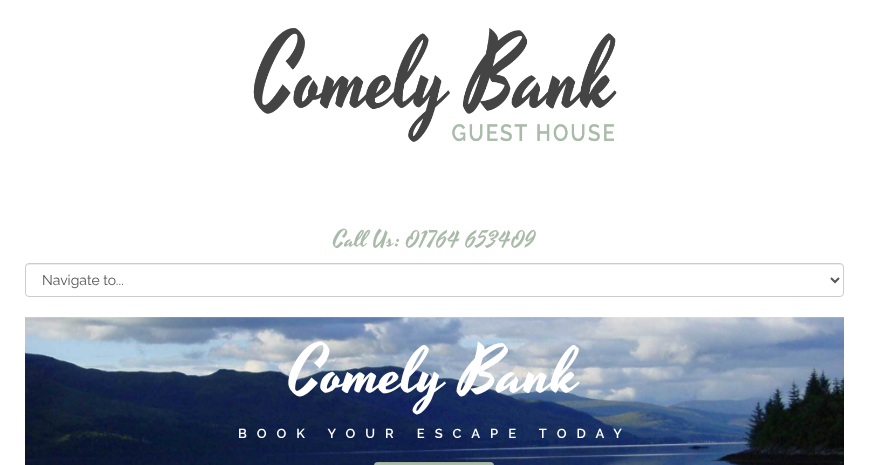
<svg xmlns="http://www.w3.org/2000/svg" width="869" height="465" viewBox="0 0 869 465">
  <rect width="100%" height="100%" fill="#fff"/>
  <image x="253" y="28" width="364" height="114" href="img/1.png"/>
  <path d="M29 265H840C842 265 843 266 843 268C843 266 842 264 840 264H29C27 264 26 266 26 268C26 266 27 265 29 265Z" fill="#ececec"/>
  <rect x="25.5" y="263.5" width="818" height="33" rx="3.5" fill="none" stroke="#ccc"/>
  <path d="M831 278L835 282L839 278" fill="none" stroke="#555" stroke-width="2"/>
  <image x="25" y="317" width="819" height="148" href="img/2.png"/>
  <rect x="374" y="462" width="120" height="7" rx="4" fill="#a9bba8"/>
  <path d="M374.5 462.5h119v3H374.5z" fill="none" stroke="#0000000d"/>
  <text x="333" y="246" font-family="Yesteryear" font-size="23" fill="#a9bba8">Call Us: 01764 653409</text>
  <text x="42" y="285" font-family="Raleway" font-size="14" fill="#555">Navigate to...</text>
  <text x="289" y="391" font-family="Yesteryear" font-size="65" fill="#fff">Comely Bank</text>
  <text x="238" y="438" font-family="Raleway" font-size="13" font-weight="600" letter-spacing="10" fill="#fff">BOOK YOUR ESCAPE TODAY</text>
</svg>
